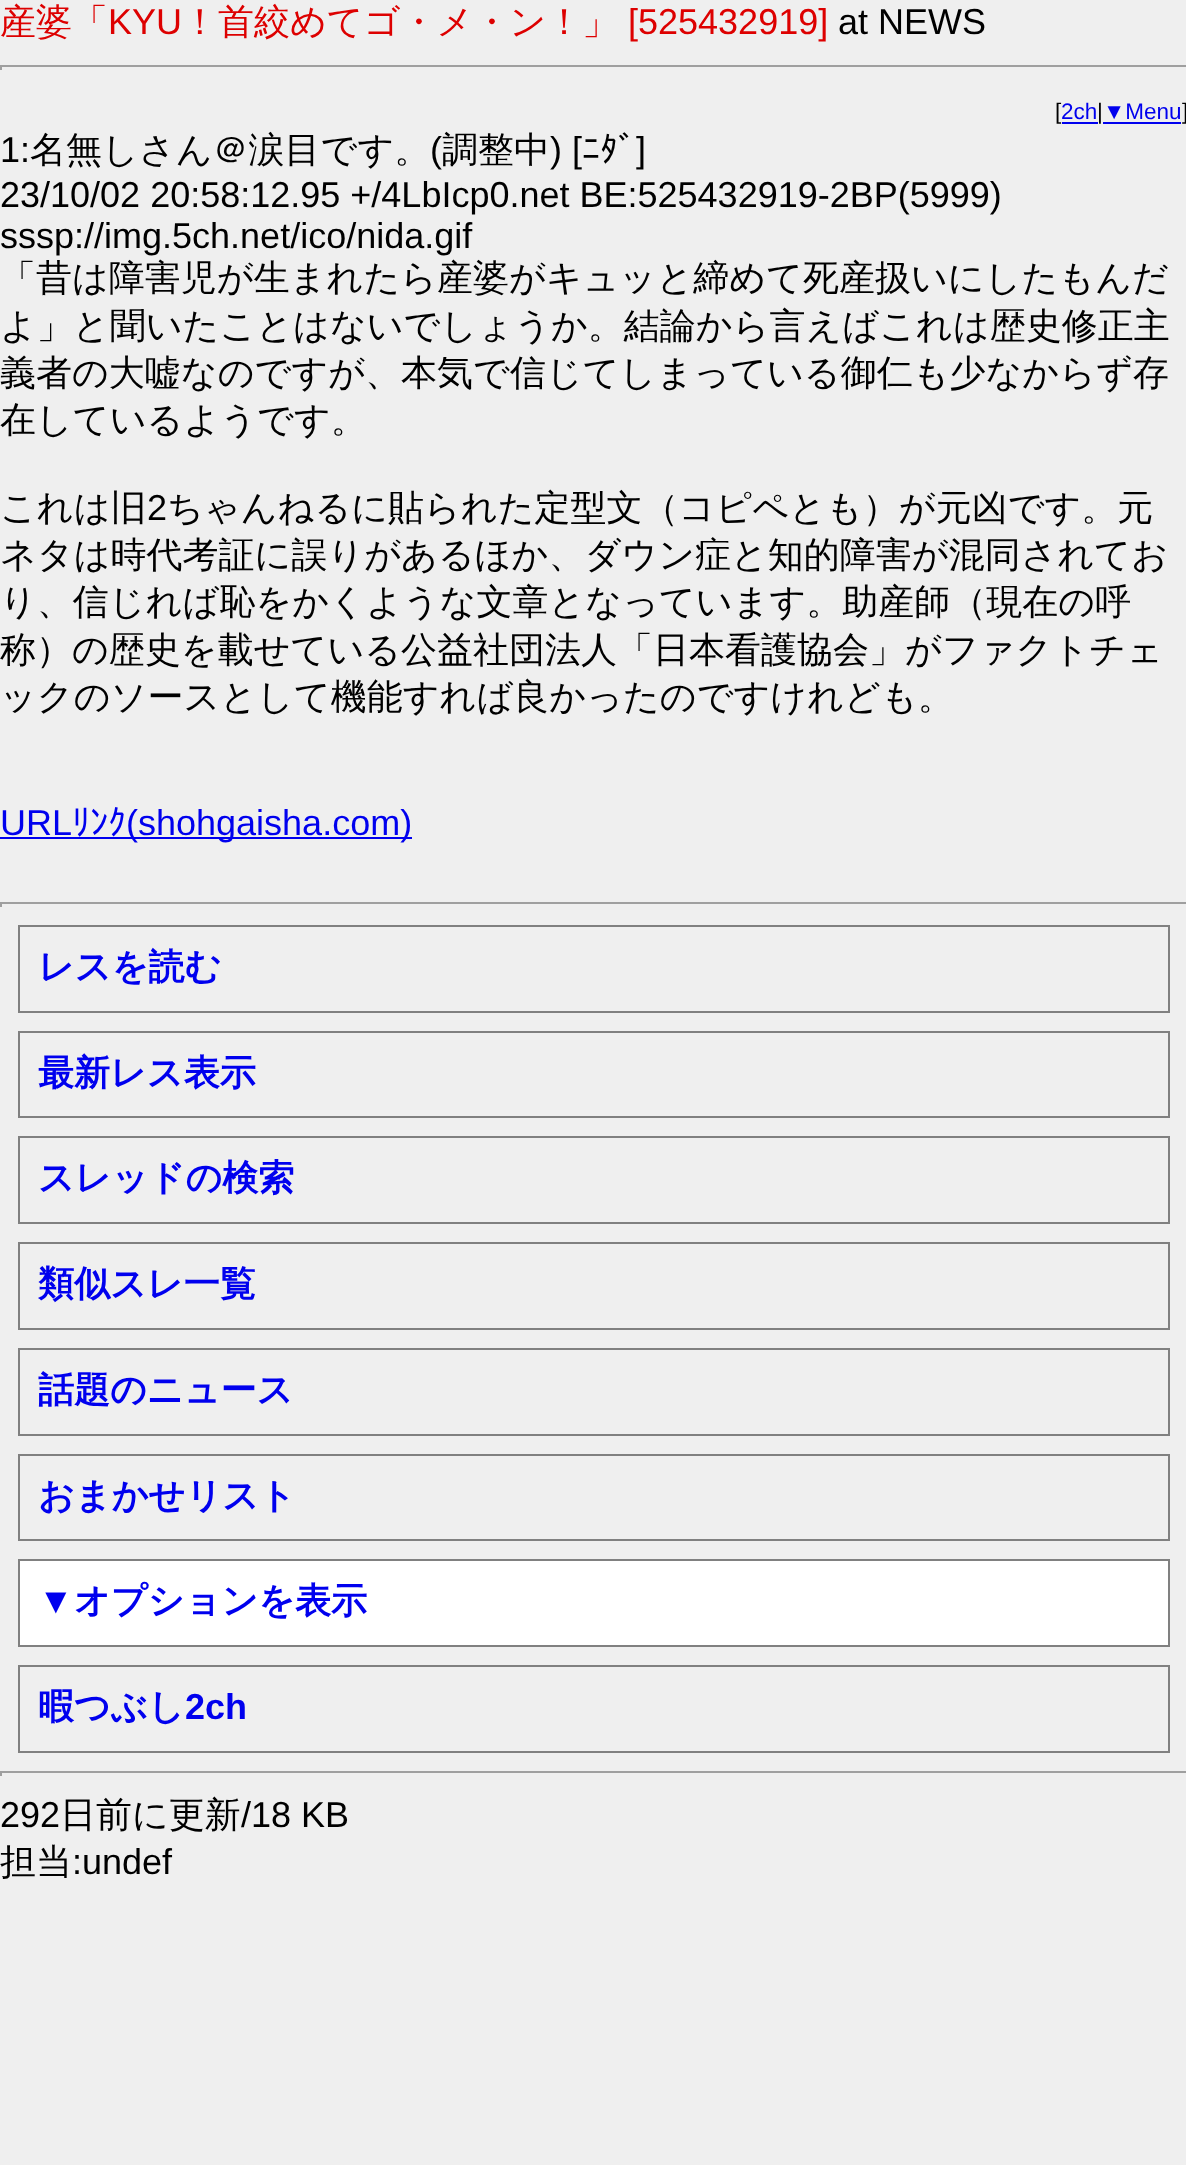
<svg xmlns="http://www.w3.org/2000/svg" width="1186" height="2165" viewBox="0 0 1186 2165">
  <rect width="100%" height="100%" fill="#efefef"/>
  <path d="M0 65h1186v2H0z" fill="#9f9f9f"/>
  <path d="M0 65h2v5H0z" fill="#9f9f9f"/>
  <path d="M1062 122h36v2H1062z" fill="#00e"/>
  <path d="M1103 122h78v2H1103z" fill="#00e"/>
  <path d="M0 837h412v2H0z" fill="#00e"/>
  <path d="M0 902h1186v2H0z" fill="#9f9f9f"/>
  <path d="M0 902h2v5H0z" fill="#9f9f9f"/>
  <path d="M19 926h1150v86H19z" fill="none" stroke="#808080" stroke-width="2"/>
  <path d="M19 1032h1150v85H19z" fill="none" stroke="#808080" stroke-width="2"/>
  <path d="M19 1137h1150v86H19z" fill="none" stroke="#808080" stroke-width="2"/>
  <path d="M19 1243h1150v86H19z" fill="none" stroke="#808080" stroke-width="2"/>
  <path d="M19 1349h1150v86H19z" fill="none" stroke="#808080" stroke-width="2"/>
  <path d="M19 1455h1150v85H19z" fill="none" stroke="#808080" stroke-width="2"/>
  <path d="M19 1560h1150v86H19z" fill="#fff" stroke="#808080" stroke-width="2"/>
  <path d="M19 1666h1150v86H19z" fill="none" stroke="#808080" stroke-width="2"/>
  <path d="M0 1771h1186v2H0z" fill="#9f9f9f"/>
  <path d="M0 1771h2v5H0z" fill="#9f9f9f"/>
  <g font-family="WenQuanYi Zen Hei" font-size="36" font-weight="500" fill="#d00">
    <text x="0" y="34">産婆「</text>
    <text x="182" y="34">！首絞めてゴ・メ・ン！」</text>
  </g>
  <text x="628" y="34" font-family="Liberation Sans" font-size="36" fill="#d00">[525432919]</text>
  <text x="838" y="34" font-family="Liberation Sans" font-size="36" fill="#000">at NEWS</text>
  <text x="1055" y="119" font-family="Liberation Sans" font-size="22.5" fill="#000">[</text>
  <text x="1061" y="119" font-family="Liberation Sans" font-size="22.5" fill="#00e">2ch</text>
  <text x="1097" y="119" font-family="Liberation Sans" font-size="22.5" fill="#000">|</text>
  <text x="1103" y="119" font-family="Liberation Sans" font-size="22.5" fill="#00e">▼Menu</text>
  <text x="1182" y="119" font-family="Liberation Sans" font-size="22.5" fill="#000">]</text>
  <text x="0" y="162" font-family="Liberation Sans" font-size="36" fill="#000">1:</text>
  <text x="30" y="162" font-family="WenQuanYi Zen Hei" font-size="36" font-weight="500" fill="#000">名無しさん＠涙目です。</text>
  <text x="430" y="162" font-family="Liberation Sans" font-size="36" fill="#000">(</text>
  <text x="442" y="162" font-family="WenQuanYi Zen Hei" font-size="36" font-weight="500" fill="#000">調整中</text>
  <text x="550" y="162" font-family="Liberation Sans" font-size="36" fill="#000">) [</text>
  <text x="582" y="162" font-family="IPAGothic" font-size="36" fill="#000">ﾆﾀﾞ</text>
  <g font-family="Liberation Sans" font-size="36" fill="#000">
    <text x="636" y="162">]</text>
    <text x="0" y="207">23/10/02 20:58:12.95 +/4LbIcp0.net BE:525432919-2BP(5999)</text>
    <text x="0" y="248">sssp://img.5ch.net/ico/nida.gif</text>
  </g>
  <g font-family="WenQuanYi Zen Hei" font-size="36" font-weight="500" fill="#000">
    <text x="0" y="290">「昔は障害児が生まれたら産婆がキュッと締めて死産扱いにしたもんだ</text>
    <text x="0" y="338">よ」と聞いたことはないでしょうか。結論から言えばこれは歴史修正主</text>
    <text x="0" y="385">義者の大嘘なのですが、本気で信じてしまっている御仁も少なからず存</text>
    <text x="0" y="432">在しているようです。</text>
    <text x="0" y="520">これは旧</text>
  </g>
  <text x="147" y="520" font-family="Liberation Sans" font-size="36" fill="#000">2</text>
  <g font-family="WenQuanYi Zen Hei" font-size="36" font-weight="500" fill="#000">
    <text x="167" y="520">ちゃんねるに貼られた定型文（コピペとも）が元凶です。元</text>
    <text x="0" y="567">ネタは時代考証に誤りがあるほか、ダウン症と知的障害が混同されてお</text>
    <text x="0" y="614">り、信じれば恥をかくような文章となっています。助産師（現在の呼</text>
    <text x="0" y="662">称）の歴史を載せている公益社団法人「日本看護協会」がファクトチェ</text>
    <text x="0" y="709">ックのソースとして機能すれば良かったのですけれども。</text>
  </g>
  <text x="0" y="835" font-family="Liberation Sans" font-size="36" fill="#00e">URL</text>
  <text x="72" y="835" font-family="IPAGothic" font-size="36" fill="#00e">ﾘﾝｸ</text>
  <text x="126" y="835" font-family="Liberation Sans" font-size="36" fill="#00e">(shohgaisha.com)</text>
  <g font-family="WenQuanYi Zen Hei" font-size="36" font-weight="bold" fill="#00e">
    <text x="38" y="979">レスを読む</text>
    <text x="38" y="1085">最新レス表示</text>
    <text x="38" y="1190">スレッドの検索</text>
    <text x="38" y="1296">類似スレ一覧</text>
    <text x="38" y="1402">話題のニュース</text>
    <text x="38" y="1508">おまかせリスト</text>
  </g>
  <text x="38" y="1613" font-family="Liberation Sans" font-size="36" font-weight="bold" fill="#00e">▼</text>
  <g font-family="WenQuanYi Zen Hei" font-size="36" font-weight="bold" fill="#00e">
    <text x="74" y="1613">オプションを表示</text>
    <text x="38" y="1719">暇つぶし</text>
  </g>
  <text x="185" y="1719" font-family="Liberation Sans" font-size="36" font-weight="bold" fill="#00e">2ch</text>
  <text x="0" y="1827" font-family="Liberation Sans" font-size="36" fill="#000">292</text>
  <text x="60" y="1827" font-family="WenQuanYi Zen Hei" font-size="36" font-weight="500" fill="#000">日前に更新</text>
  <text x="241" y="1827" font-family="Liberation Sans" font-size="36" fill="#000">/18 KB</text>
  <text x="0" y="1874" font-family="WenQuanYi Zen Hei" font-size="36" font-weight="500" fill="#000">担当</text>
  <text x="72" y="1874" font-family="Liberation Sans" font-size="36" fill="#000">:undef</text>
  <text x="108" y="34" font-family="Liberation Sans" font-size="36" fill="#d00">KYU</text>
</svg>
